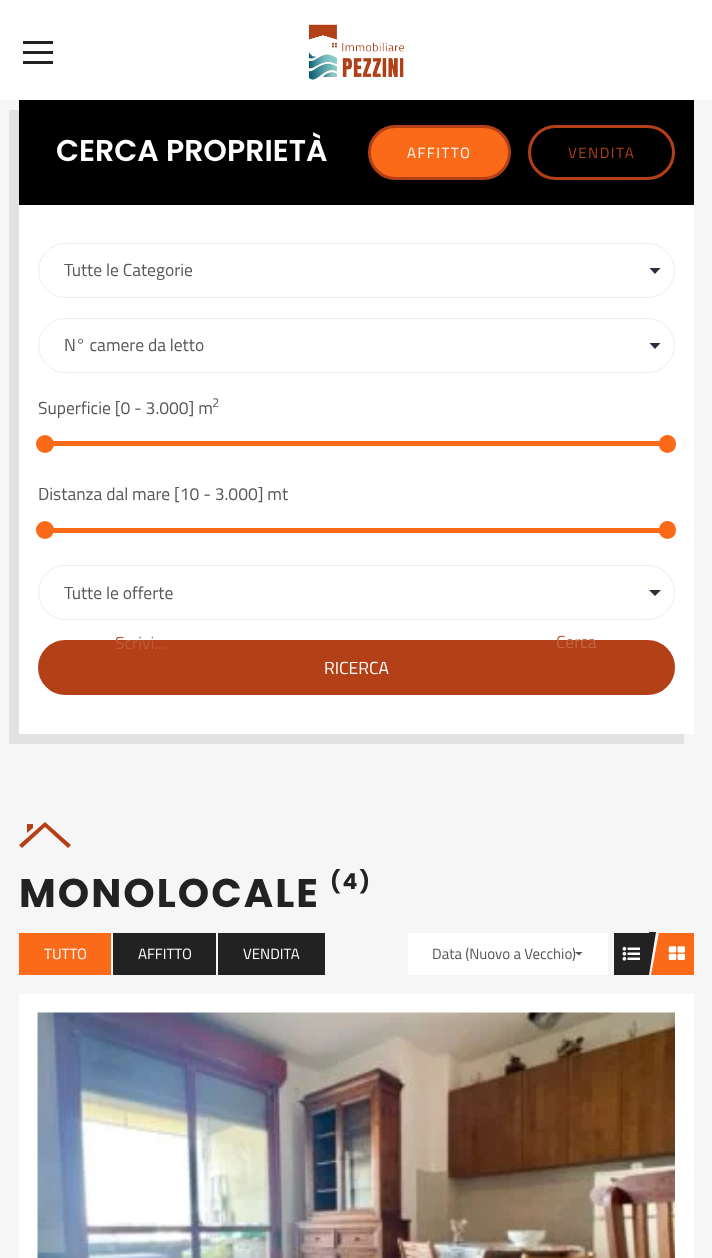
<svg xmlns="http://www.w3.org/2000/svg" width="712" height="1258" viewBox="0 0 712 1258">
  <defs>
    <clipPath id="clip1"><path d="M649 268h12v12H649z"/></clipPath>
    <clipPath id="clip2"><path d="M649 343h12v12H649z"/></clipPath>
  </defs>
  <rect width="100%" height="100%" fill="#fff"/>
  <path d="M23 41h30v3H23z" fill="#222"/>
  <path d="M23 51h30v3H23z" fill="#222"/>
  <path d="M23 61h30v3H23z" fill="#222"/>
  <image x="308" y="24" width="97" height="56" href="img/1.png"/>
  <path d="M0 100h712v1158H0z" fill="#f6f6f6"/>
  <path d="M9 110V744H684V734H19V110Z" fill="#e2e2e2"/>
  <path d="M19 205h675v529H19z" fill="#fff"/>
  <path d="M19 100h675v105H19z" fill="#000"/>
  <rect x="369.5" y="126.5" width="140" height="52" rx="26" fill="#fb6a19" stroke="#b34017" stroke-width="3"/>
  <rect x="529.5" y="126.5" width="144" height="52" rx="26" fill="none" stroke="#b34017" stroke-width="3"/>
  <g clip-path="url(#clip1)">
    <path d="M649 267.5H661L655 274Z" fill="#28303d"/>
  </g>
  <rect x="38.5" y="243.5" width="636" height="54" rx="27" fill="none" stroke="#ededed"/>
  <g clip-path="url(#clip2)">
    <path d="M649 342.5H661L655 349Z" fill="#28303d"/>
  </g>
  <rect x="38.5" y="318.5" width="636" height="54" rx="27" fill="none" stroke="#ededed"/>
  <path d="M48 441h612v5H48z" fill="#fb6a19"/>
  <circle cx="45" cy="444" r="9" fill="#fb6a19"/>
  <rect x="659" y="435" width="17" height="18" rx="8.5" fill="#fb6a19"/>
  <path d="M48 528h612v5H48z" fill="#fb6a19"/>
  <circle cx="45" cy="530" r="9" fill="#fb6a19"/>
  <rect x="659" y="521" width="17" height="18" rx="8.5" fill="#fb6a19"/>
  <path d="M649 590H661L655 596Z" fill="#28303d"/>
  <rect x="38.5" y="565.5" width="636" height="54" rx="27" fill="none" stroke="#ededed"/>
  <rect x="39.5" y="641.5" width="634" height="52" rx="26" fill="#b34017" stroke="#b34017" stroke-width="3"/>
  <path d="M27 824H33V828L27 833ZM45 822L19 845L22 848L45 827L68 848L71 845Z" fill="#b34017"/>
  <path d="M19 933h92v42H19z" fill="#fb6a19"/>
  <path d="M113 933h103v42H113z" fill="#222"/>
  <path d="M218 933h107v42H218z" fill="#222"/>
  <path d="M408 933h200v42H408z" fill="#fff"/>
  <path d="M575 952H582.5L579 955.5Z" fill="#575756"/>
  <path d="M614 933h35v42H614z" fill="#222"/>
  <image x="622" y="946" width="18" height="15" href="img/2.png"/>
  <path d="M649 932H656L649 975Z" fill="#222"/>
  <path d="M659 933h35v42H659z" fill="#fb6a19"/>
  <path d="M659 975H651L659 932Z" fill="#fb6a19"/>
  <image x="668" y="946" width="17" height="14" href="img/3.png"/>
  <path d="M19 994h675v264H19z" fill="#fff"/>
  <image x="37" y="1012" width="638" height="246" href="img/4.png"/>
  <text x="56" y="161" font-family="Poppins" font-size="30" font-weight="600" fill="#fff">CERCA PROPRIETÀ</text>
  <text x="407" y="158" font-family="Titillium Web" font-size="15" letter-spacing="1.5" fill="#fff">AFFITTO</text>
  <text x="568" y="158" font-family="Titillium Web" font-size="15" letter-spacing="1.5" fill="#b34017">VENDITA</text>
  <g font-family="Titillium Web" font-size="17.5" fill="#575756">
    <text x="64" y="276">Tutte le Categorie</text>
    <text x="64" y="351">N° camere da letto</text>
    <text x="38" y="414">Superficie [0 - 3.000] m</text>
  </g>
  <text x="212" y="407" font-family="Titillium Web" font-size="13" fill="#575756">2</text>
  <g font-family="Titillium Web" font-size="17.5" fill="#575756">
    <text x="38" y="500">Distanza dal mare [10 - 3.000] mt</text>
    <text x="64" y="599">Tutte le offerte</text>
  </g>
  <text x="324" y="674" font-family="Titillium Web" font-size="17.5" fill="#fff">RICERCA</text>
  <text x="19" y="907" font-family="Poppins" font-size="40" font-weight="bold" letter-spacing="2" fill="#222">MONOLOCALE</text>
  <text x="330" y="889" font-family="Poppins" font-size="22" font-weight="bold" letter-spacing="2" fill="#222">(4)</text>
  <g font-family="Titillium Web" font-size="15" fill="#fff">
    <text x="44" y="959">TUTTO</text>
    <text x="138" y="959">AFFITTO</text>
    <text x="243" y="959">VENDITA</text>
  </g>
  <text x="432" y="959" font-family="Titillium Web" font-size="15" fill="#575756">Data (Nuovo a Vecchio)</text>
  <text x="115" y="649" font-family="Titillium Web" font-size="17.5" fill="#be5c39">Scrivi...</text>
  <text x="556" y="648" font-family="Titillium Web" font-size="17.5" fill="#c26746">Cerca</text>
</svg>
